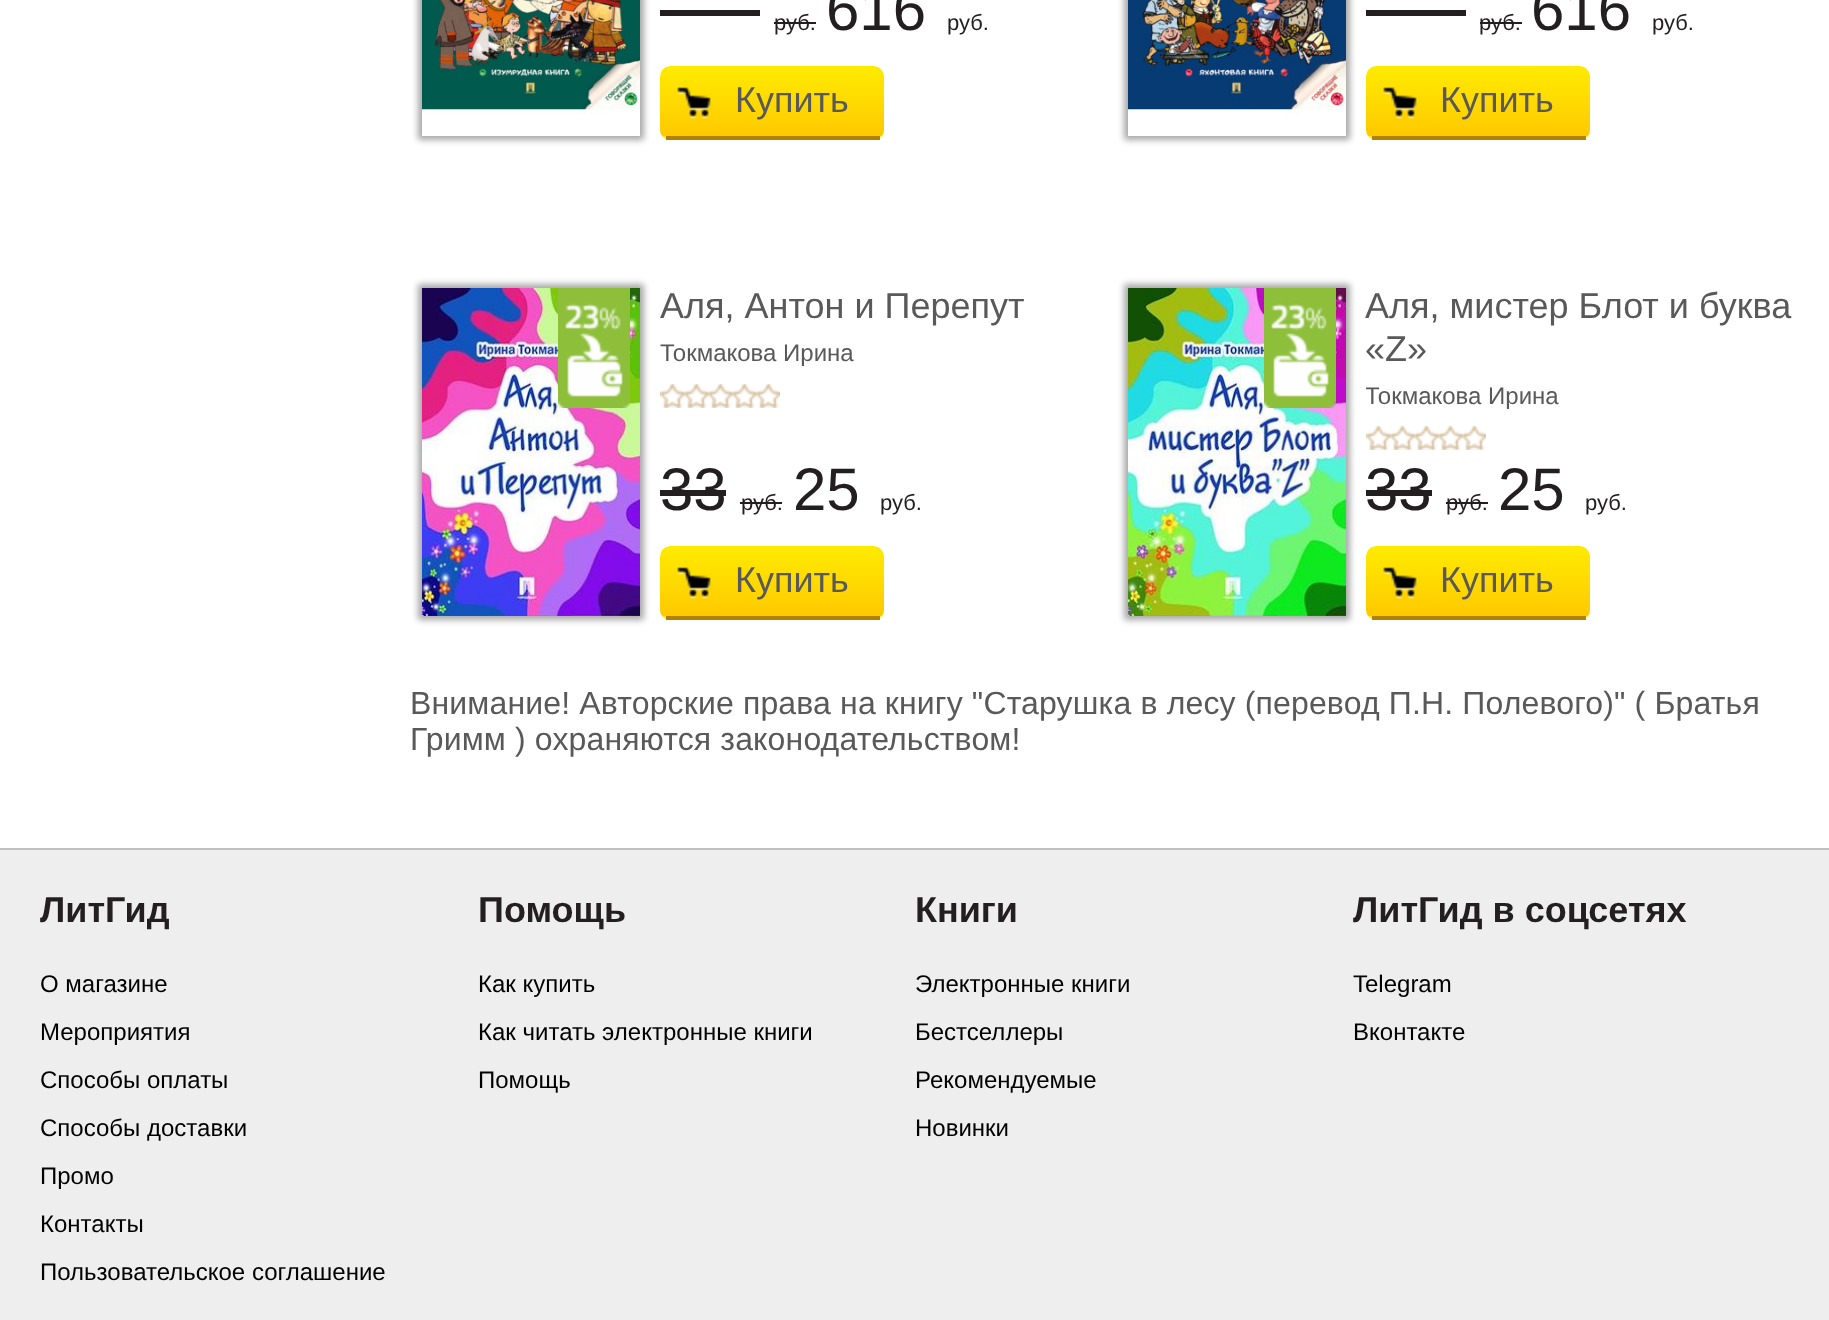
<svg xmlns="http://www.w3.org/2000/svg" width="1829" height="1320" viewBox="0 0 1829 1320">
  <defs>
    <clipPath id="clip1"><path d="M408 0H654V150H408ZM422-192H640V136H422Z" clip-rule="evenodd"/></clipPath>
    <clipPath id="clip2"><rect x="660" y="66" width="224" height="74" rx="10"/></clipPath>
    <linearGradient id="g1" gradientUnits="userSpaceOnUse" x1="772" y1="66" x2="772" y2="136"><stop offset="0" stop-color="#ffeb00"/><stop offset="1" stop-color="#ffc900"/></linearGradient>
    <linearGradient id="g2" gradientUnits="userSpaceOnUse" x1="772" y1="136" x2="772" y2="206"><stop offset="0" stop-color="#ffeb00"/><stop offset="1" stop-color="#ffc900"/></linearGradient>
    <clipPath id="clip3"><path d="M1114 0H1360V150H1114ZM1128-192H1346V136H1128Z" clip-rule="evenodd"/></clipPath>
    <clipPath id="clip4"><rect x="1366" y="66" width="224" height="74" rx="10"/></clipPath>
    <linearGradient id="g3" gradientUnits="userSpaceOnUse" x1="1478" y1="66" x2="1478" y2="136"><stop offset="0" stop-color="#ffeb00"/><stop offset="1" stop-color="#ffc900"/></linearGradient>
    <linearGradient id="g4" gradientUnits="userSpaceOnUse" x1="1478" y1="136" x2="1478" y2="206"><stop offset="0" stop-color="#ffeb00"/><stop offset="1" stop-color="#ffc900"/></linearGradient>
    <clipPath id="clip5"><rect x="660" y="546" width="224" height="74" rx="10"/></clipPath>
    <linearGradient id="g5" gradientUnits="userSpaceOnUse" x1="772" y1="546" x2="772" y2="616"><stop offset="0" stop-color="#ffeb00"/><stop offset="1" stop-color="#ffc900"/></linearGradient>
    <linearGradient id="g6" gradientUnits="userSpaceOnUse" x1="772" y1="616" x2="772" y2="686"><stop offset="0" stop-color="#ffeb00"/><stop offset="1" stop-color="#ffc900"/></linearGradient>
    <clipPath id="clip6"><rect x="1366" y="546" width="224" height="74" rx="10"/></clipPath>
    <linearGradient id="g7" gradientUnits="userSpaceOnUse" x1="1478" y1="546" x2="1478" y2="616"><stop offset="0" stop-color="#ffeb00"/><stop offset="1" stop-color="#ffc900"/></linearGradient>
    <linearGradient id="g8" gradientUnits="userSpaceOnUse" x1="1478" y1="616" x2="1478" y2="686"><stop offset="0" stop-color="#ffeb00"/><stop offset="1" stop-color="#ffc900"/></linearGradient>
    <clipPath id="clip7"><path d="M1366 382h444v28H1366z"/></clipPath>
  </defs>
  <rect width="100%" height="100%" fill="#fff"/>
  <g clip-path="url(#clip1)">
    <path d="M418 -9h226v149H418z" fill="#a8a8a8" filter="blur(3px)"/>
  </g>
  <image x="422" y="0" width="218" height="114" href="img/1.png"/>
  <path d="M660 10h100v6H660z" fill="#231f20"/>
  <path d="M774 22h42v2H774z" fill="#231f20"/>
  <g clip-path="url(#clip2)">
    <path d="M670 66H874C879.5 66 884 70.5 884 76V136H660V76C660 70.5 664.5 66 670 66Z" fill="url(#g1)"/>
    <path d="M660 136h224v3H660z" fill="url(#g2)"/>
  </g>
  <path d="M666 136h214v4H666z" fill="#b38000"/>
  <image x="677" y="87" width="34" height="32" href="img/2.png"/>
  <g clip-path="url(#clip3)">
    <path d="M1124 -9h226v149H1124z" fill="#a8a8a8" filter="blur(3px)"/>
  </g>
  <image x="1128" y="0" width="218" height="114" href="img/3.png"/>
  <path d="M1366 10h100v6H1366z" fill="#231f20"/>
  <path d="M1480 22h42v2H1480z" fill="#231f20"/>
  <g clip-path="url(#clip4)">
    <path d="M1376 66H1580C1585.5 66 1590 70.5 1590 76V136H1366V76C1366 70.5 1370.5 66 1376 66Z" fill="url(#g3)"/>
    <path d="M1366 136h224v3H1366z" fill="url(#g4)"/>
  </g>
  <path d="M1372 136h214v4H1372z" fill="#b38000"/>
  <image x="1383" y="87" width="34" height="32" href="img/2.png"/>
  <path d="M418 284h226v336H418z" fill="#a8a8a8" filter="blur(3px)"/>
  <image x="422" y="288" width="218" height="328" href="img/4.png"/>
  <image x="558" y="288" width="72" height="120" href="img/5.png"/>
  <image x="660" y="384" width="120" height="24" href="img/6.png"/>
  <path d="M660 490h66v6H660z" fill="#231f20"/>
  <path d="M740 502h42v2H740z" fill="#231f20"/>
  <g clip-path="url(#clip5)">
    <path d="M670 546H874C879.5 546 884 550.5 884 556V616H660V556C660 550.5 664.5 546 670 546Z" fill="url(#g5)"/>
    <path d="M660 616h224v3H660z" fill="url(#g6)"/>
  </g>
  <path d="M666 616h214v4H666z" fill="#b38000"/>
  <image x="677" y="567" width="34" height="32" href="img/2.png"/>
  <path d="M1124 284h226v336H1124z" fill="#a8a8a8" filter="blur(3px)"/>
  <image x="1128" y="288" width="218" height="328" href="img/7.png"/>
  <image x="1264" y="288" width="72" height="120" href="img/8.png"/>
  <image x="1366" y="426" width="120" height="24" href="img/6.png"/>
  <path d="M1366 490h66v6H1366z" fill="#231f20"/>
  <path d="M1446 502h42v2H1446z" fill="#231f20"/>
  <g clip-path="url(#clip6)">
    <path d="M1376 546H1580C1585.5 546 1590 550.5 1590 556V616H1366V556C1366 550.5 1370.5 546 1376 546Z" fill="url(#g7)"/>
    <path d="M1366 616h224v3H1366z" fill="url(#g8)"/>
  </g>
  <path d="M1372 616h214v4H1372z" fill="#b38000"/>
  <image x="1383" y="567" width="34" height="32" href="img/2.png"/>
  <path d="M0 850h1829v470H0z" fill="#eee"/>
  <path d="M0 848h1829v2H0z" fill="#c0c0c0"/>
  <text x="774" y="30" font-family="Liberation Sans" font-size="22" fill="#231f20">руб.</text>
  <text x="826" y="30" font-family="Liberation Sans" font-size="60" fill="#231f20">616</text>
  <text x="947" y="30" font-family="Liberation Sans" font-size="22" fill="#231f20">руб.</text>
  <text x="735" y="112" font-family="Liberation Sans" font-size="36" fill="#595959">Купить</text>
  <text x="1479" y="30" font-family="Liberation Sans" font-size="22" fill="#231f20">руб.</text>
  <text x="1531" y="30" font-family="Liberation Sans" font-size="60" fill="#231f20">616</text>
  <text x="1652" y="30" font-family="Liberation Sans" font-size="22" fill="#231f20">руб.</text>
  <g font-family="Liberation Sans" font-size="36" fill="#595959">
    <text x="1440" y="112">Купить</text>
    <text x="660" y="318">Аля, Антон и Перепут</text>
  </g>
  <text x="660" y="361" font-family="Liberation Sans" font-size="24" fill="#595959">Токмакова Ирина</text>
  <text x="660" y="510" font-family="Liberation Sans" font-size="60" fill="#231f20">33</text>
  <text x="741" y="510" font-family="Liberation Sans" font-size="22" fill="#231f20">руб.</text>
  <text x="793" y="510" font-family="Liberation Sans" font-size="60" fill="#231f20">25</text>
  <text x="880" y="510" font-family="Liberation Sans" font-size="22" fill="#231f20">руб.</text>
  <g font-family="Liberation Sans" font-size="36" fill="#595959">
    <text x="735" y="592">Купить</text>
    <text x="1365" y="318">Аля, мистер Блот и буква</text>
    <text x="1365" y="361">«Z»</text>
  </g>
  <g clip-path="url(#clip7)">
    <text x="1365" y="404" font-family="Liberation Sans" font-size="24" fill="#595959">Токмакова Ирина</text>
  </g>
  <text x="1365" y="510" font-family="Liberation Sans" font-size="60" fill="#231f20">33</text>
  <text x="1446" y="510" font-family="Liberation Sans" font-size="22" fill="#231f20">руб.</text>
  <text x="1498" y="510" font-family="Liberation Sans" font-size="60" fill="#231f20">25</text>
  <text x="1585" y="510" font-family="Liberation Sans" font-size="22" fill="#231f20">руб.</text>
  <text x="1440" y="592" font-family="Liberation Sans" font-size="36" fill="#595959">Купить</text>
  <g font-family="Liberation Sans" font-size="32" letter-spacing="0.15" fill="#595959">
    <text x="410" y="714">Внимание! Авторские права на книгу "Старушка в лесу (перевод П.Н. Полевого)" ( Братья</text>
    <text x="410" y="750">Гримм ) охраняются законодательством!</text>
  </g>
  <text x="40" y="922" font-family="Liberation Sans" font-size="36" font-weight="bold" fill="#231f20">ЛитГид</text>
  <g font-family="Liberation Sans" font-size="24" fill="#000">
    <text x="40" y="992">О магазине</text>
    <text x="40" y="1040">Мероприятия</text>
    <text x="40" y="1088">Способы оплаты</text>
    <text x="40" y="1136">Способы доставки</text>
    <text x="40" y="1184">Промо</text>
    <text x="40" y="1232">Контакты</text>
    <text x="40" y="1280">Пользовательское соглашение</text>
  </g>
  <text x="478" y="922" font-family="Liberation Sans" font-size="36" font-weight="bold" fill="#231f20">Помощь</text>
  <g font-family="Liberation Sans" font-size="24" fill="#000">
    <text x="478" y="992">Как купить</text>
    <text x="478" y="1040">Как читать электронные книги</text>
    <text x="478" y="1088">Помощь</text>
  </g>
  <text x="915" y="922" font-family="Liberation Sans" font-size="36" font-weight="bold" fill="#231f20">Книги</text>
  <g font-family="Liberation Sans" font-size="24" fill="#000">
    <text x="915" y="992">Электронные книги</text>
    <text x="915" y="1040">Бестселлеры</text>
    <text x="915" y="1088">Рекомендуемые</text>
    <text x="915" y="1136">Новинки</text>
  </g>
  <text x="1353" y="922" font-family="Liberation Sans" font-size="36" font-weight="bold" fill="#231f20">ЛитГид в соцсетях</text>
  <g font-family="Liberation Sans" font-size="24" fill="#000">
    <text x="1353" y="992">Telegram</text>
    <text x="1353" y="1040">Вконтакте</text>
  </g>
</svg>
